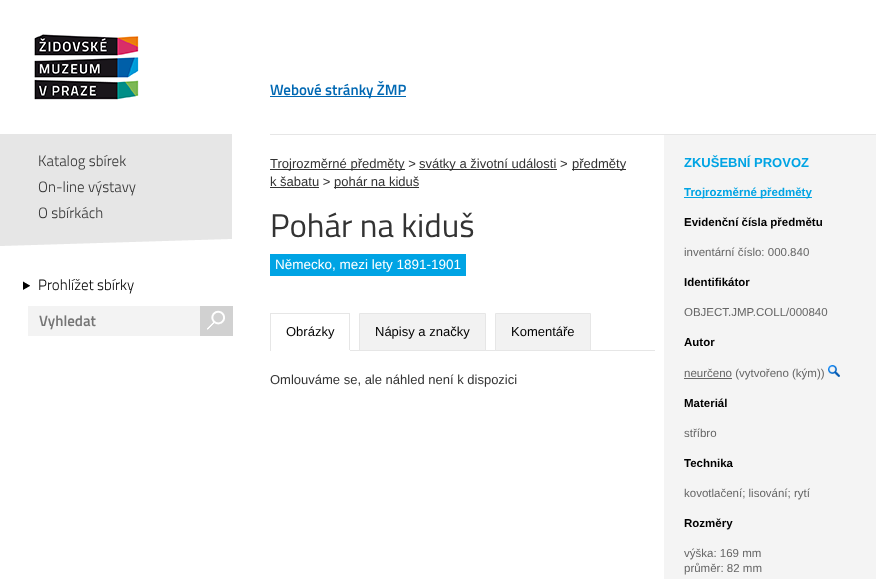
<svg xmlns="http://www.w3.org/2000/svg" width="876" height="579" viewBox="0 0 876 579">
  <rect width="100%" height="100%" fill="#fff"/>
  <image x="34" y="34" width="105" height="66" href="img/1.png"/>
  <path d="M270 96h136v1H270z" fill="#0068b3"/>
  <path d="M0 134h232v105H0z" fill="#e6e6e6"/>
  <image x="0" y="239" width="232" height="9" href="img/2.png"/>
  <image x="23" y="281" width="7" height="9" href="img/3.png"/>
  <path d="M28 306h172v30H28z" fill="#f3f3f3"/>
  <path d="M200 306h33v30H200z" fill="#d1d1d1"/>
  <image x="207" y="310" width="18" height="20" href="img/4.png"/>
  <path d="M270 134h606v1H270z" fill="#e6e6e6"/>
  <path d="M270 169h135v1H270z" fill="#333"/>
  <path d="M419 169h138v1H419z" fill="#333"/>
  <path d="M572 169h54v1H572z" fill="#333"/>
  <path d="M270 187h49v1H270z" fill="#333"/>
  <path d="M334 187h85v1H334z" fill="#333"/>
  <path d="M270 254h196v22H270z" fill="#00a4e4"/>
  <path d="M350 350h305v1H350z" fill="#e6e6e6"/>
  <path d="M270 313h80v1H270z" fill="#e6e6e6"/>
  <path d="M349 313h1v38H349z" fill="#e6e6e6"/>
  <path d="M349 350h1v1H349z" fill="#fff"/>
  <path d="M270 313h1v38H270z" fill="#e6e6e6"/>
  <path d="M359.5 313.5h126v37H359.5z" fill="#f2f2f2" stroke="#e6e6e6"/>
  <path d="M495.5 313.5h95v37H495.5z" fill="#f2f2f2" stroke="#e6e6e6"/>
  <path d="M664 135h212v444H664z" fill="#f4f4f4"/>
  <path d="M684 197h128v1H684z" fill="#00a4e4"/>
  <path d="M684 378h48v1H684z" fill="#666"/>
  <image x="828" y="365" width="12" height="12" href="img/5.png"/>
  <text x="270" y="95" font-family="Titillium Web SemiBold" font-size="15" font-weight="600" fill="#0068b3">Webové stránky ŽMP</text>
  <g font-family="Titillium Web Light" font-size="15" font-weight="300" fill="#333">
    <text x="38" y="166">Katalog sbírek</text>
    <text x="38" y="192">On-line výstavy</text>
    <text x="38" y="218">O sbírkách</text>
  </g>
  <text x="38" y="290" font-family="Titillium Web Light" font-size="15" font-weight="300" fill="#000">Prohlížet sbírky</text>
  <text x="39" y="326" font-family="Titillium Web SemiBold" font-size="15" font-weight="600" fill="#757575">Vyhledat</text>
  <g font-family="Liberation Sans" font-size="13" fill="#333">
    <text x="270" y="168">Trojrozměrné předměty &gt;</text>
    <text x="419" y="168">svátky a životní události &gt;</text>
    <text x="572" y="168">předměty</text>
    <text x="270" y="186">k šabatu &gt;</text>
    <text x="334" y="186">pohár na kiduš</text>
  </g>
  <text x="270" y="237" font-family="Titillium Web" font-size="33" fill="#333">Pohár na kiduš</text>
  <text x="275" y="269" font-family="Liberation Sans" font-size="13.5" fill="#fff">Německo, mezi lety 1891-1901</text>
  <g font-family="Liberation Sans" font-size="13" fill="#000">
    <text x="286" y="336">Obrázky</text>
    <text x="375" y="336">Nápisy a značky</text>
    <text x="511" y="336">Komentáře</text>
  </g>
  <text x="270" y="384" font-family="Liberation Sans" font-size="13" fill="#333">Omlouváme se, ale náhled není k dispozici</text>
  <text x="684" y="167" font-family="Liberation Sans" font-size="13" font-weight="bold" fill="#00a4e4">ZKUŠEBNÍ PROVOZ</text>
  <text x="684" y="196" font-family="Liberation Sans" font-size="11.5" font-weight="bold" fill="#00a4e4">Trojrozměrné předměty</text>
  <text x="684" y="226" font-family="Liberation Sans" font-size="11.5" font-weight="bold" fill="#000">Evidenční čísla předmětu</text>
  <text x="684" y="256" font-family="Liberation Sans" font-size="11.5" fill="#666">inventární číslo: 000.840</text>
  <text x="684" y="286" font-family="Liberation Sans" font-size="11.5" font-weight="bold" fill="#000">Identifikátor</text>
  <text x="684" y="316" font-family="Liberation Sans" font-size="11.5" fill="#666">OBJECT.JMP.COLL/000840</text>
  <text x="684" y="346" font-family="Liberation Sans" font-size="11.5" font-weight="bold" fill="#000">Autor</text>
  <text x="684" y="377" font-family="Liberation Sans" font-size="11.5" fill="#666">neurčeno (vytvořeno (kým))</text>
  <text x="684" y="407" font-family="Liberation Sans" font-size="11.5" font-weight="bold" fill="#000">Materiál</text>
  <text x="684" y="437" font-family="Liberation Sans" font-size="11.5" fill="#666">stříbro</text>
  <text x="684" y="467" font-family="Liberation Sans" font-size="11.5" font-weight="bold" fill="#000">Technika</text>
  <text x="684" y="497" font-family="Liberation Sans" font-size="11.5" fill="#666">kovotlačení; lisování; rytí</text>
  <text x="684" y="527" font-family="Liberation Sans" font-size="11.5" font-weight="bold" fill="#000">Rozměry</text>
  <g font-family="Liberation Sans" font-size="11.5" fill="#666">
    <text x="684" y="557">výška: 169 mm</text>
    <text x="684" y="572">průměr: 82 mm</text>
  </g>
</svg>
